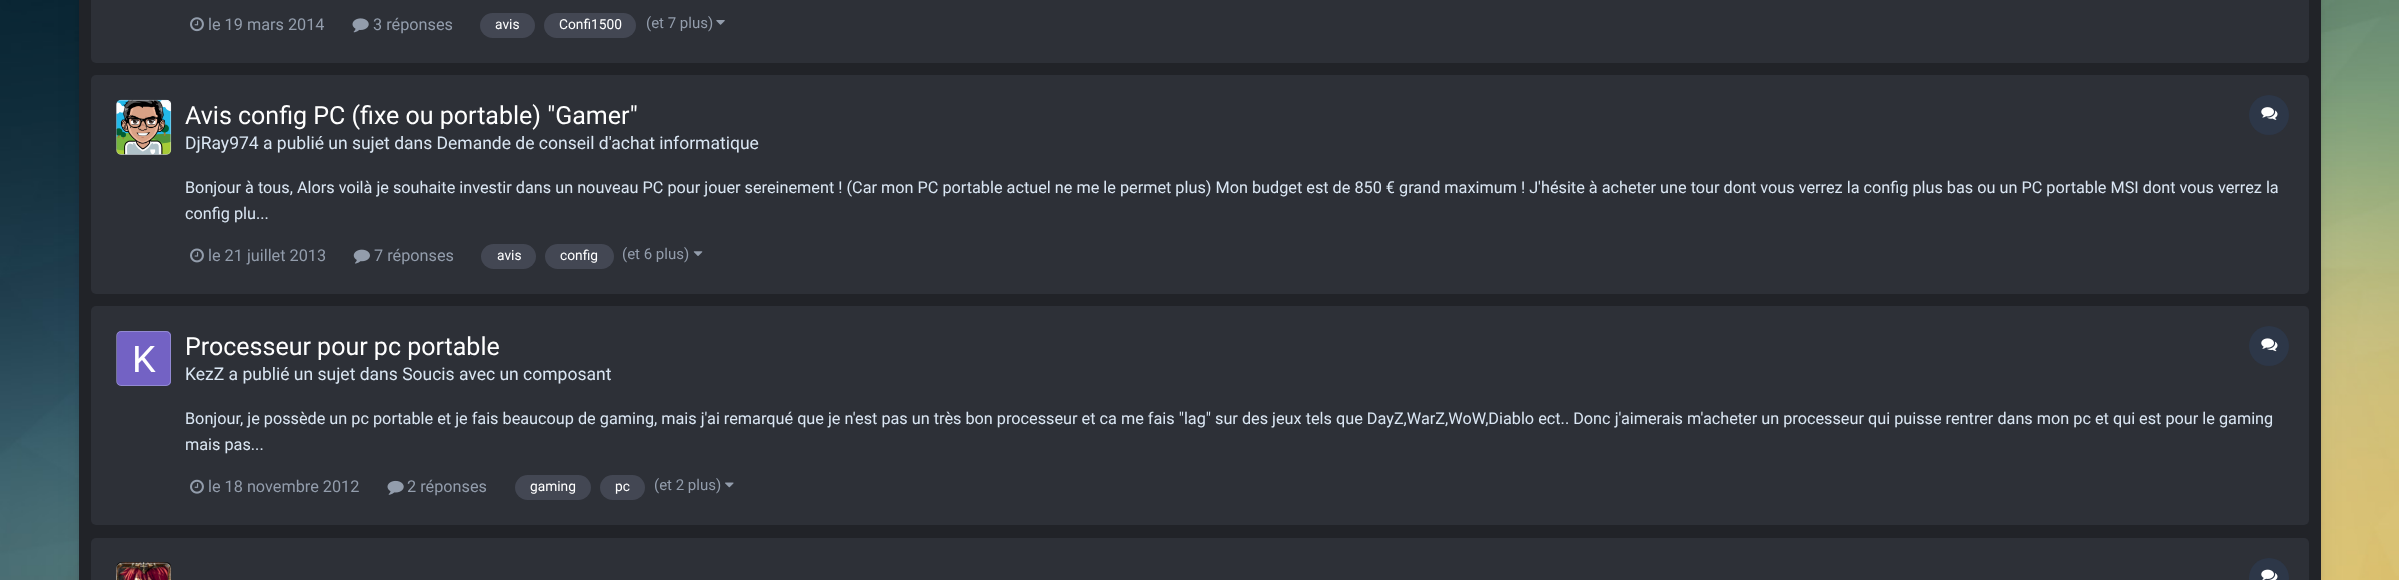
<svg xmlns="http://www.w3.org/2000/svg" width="2399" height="580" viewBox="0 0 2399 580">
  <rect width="100%" height="100%" fill="#fff"/>
  <image x="0" y="0" width="2399" height="580" href="img/1.png"/>
  <rect x="79" y="-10" width="2242" height="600" rx="4" fill="#00000014" filter="blur(2px)"/>
  <rect x="79" y="-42" width="2242" height="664" rx="4" fill="#0000000f" filter="blur(12.5px)"/>
  <path d="M79 0h2242v580H79z" fill="#212328"/>
  <rect x="91" y="-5" width="2218" height="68" rx="5" fill="#2d3037"/>
  <image x="190" y="17" width="14" height="15" href="img/2.png"/>
  <image x="352" y="18" width="17" height="15" href="img/3.png"/>
  <rect x="480" y="13" width="55" height="25" rx="12.5" fill="#434753"/>
  <rect x="544" y="13" width="92" height="25" rx="12.5" fill="#434753"/>
  <image x="716" y="20" width="9" height="5" href="img/4.png"/>
  <rect x="91" y="75" width="2218" height="219" rx="5" fill="#2d3037"/>
  <image x="116" y="99" width="56" height="56" href="img/5.png"/>
  <rect x="116.5" y="100.5" width="54" height="54" rx="4.5" fill="none" stroke="#dae6f34d"/>
  <circle cx="2269" cy="115" r="20" fill="#2d3748"/>
  <image x="2261" y="107" width="17" height="13" href="img/6.png"/>
  <image x="190" y="248" width="14" height="15" href="img/7.png"/>
  <image x="353" y="249" width="17" height="15" href="img/8.png"/>
  <rect x="481" y="244" width="55" height="25" rx="12.5" fill="#434753"/>
  <rect x="545" y="244" width="69" height="25" rx="12.5" fill="#434753"/>
  <image x="693" y="251" width="10" height="5" href="img/9.png"/>
  <rect x="91" y="306" width="2218" height="219" rx="5" fill="#2d3037"/>
  <image x="116" y="331" width="55" height="55" href="img/10.png"/>
  <rect x="116.5" y="331.5" width="54" height="54" rx="4.5" fill="none" stroke="#dae6f34d"/>
  <circle cx="2269" cy="346" r="20" fill="#2d3748"/>
  <image x="2261" y="338" width="17" height="14" href="img/11.png"/>
  <image x="190" y="479" width="14" height="15" href="img/12.png"/>
  <image x="387" y="480" width="17" height="15" href="img/13.png"/>
  <rect x="515" y="475" width="76" height="25" rx="12.5" fill="#434753"/>
  <rect x="600" y="475" width="45" height="25" rx="12.5" fill="#434753"/>
  <image x="725" y="482" width="9" height="6" href="img/14.png"/>
  <rect x="91" y="538" width="2218" height="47" rx="5" fill="#2d3037"/>
  <image x="116" y="562" width="56" height="18" href="img/15.png"/>
  <rect x="116.5" y="563.5" width="54" height="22" rx="4.5" fill="none" stroke="#dae6f34d"/>
  <circle cx="2269" cy="578" r="20" fill="#2d3748"/>
  <image x="2261" y="569" width="17" height="11" href="img/16.png"/>
  <g font-family="Roboto" font-size="16.25" fill="#939dac">
    <text x="208" y="30">le 19 mars 2014</text>
    <text x="373" y="30">3 réponses</text>
  </g>
  <g font-family="Roboto" font-size="13.75" fill="#fff">
    <text x="495" y="29">avis</text>
    <text x="559" y="29">Confi1500</text>
  </g>
  <text x="646" y="28" font-family="Roboto" font-size="15" fill="#939dac">(et 7 plus)</text>
  <text x="185" y="124" font-family="Roboto" font-size="25" fill="#fff">Avis config PC (fixe ou portable) "Gamer"</text>
  <text x="185" y="149" font-family="Roboto" font-size="17.5" fill="#dae6f3">DjRay974 a publié un sujet dans Demande de conseil d'achat informatique</text>
  <g font-family="Roboto" font-size="16.25" fill="#dae6f3">
    <text x="185" y="193">Bonjour à tous, Alors voilà je souhaite investir dans un nouveau PC pour jouer sereinement ! (Car mon PC portable actuel ne me le permet plus) Mon budget est de 850 € grand maximum ! J'hésite à acheter une tour dont vous verrez la config plus bas ou un PC portable MSI dont vous verrez la</text>
    <text x="185" y="219">config plu...</text>
  </g>
  <g font-family="Roboto" font-size="16.25" fill="#939dac">
    <text x="208" y="261">le 21 juillet 2013</text>
    <text x="374" y="261">7 réponses</text>
  </g>
  <g font-family="Roboto" font-size="13.75" fill="#fff">
    <text x="497" y="260">avis</text>
    <text x="560" y="260">config</text>
  </g>
  <text x="622" y="259" font-family="Roboto" font-size="15" fill="#939dac">(et 6 plus)</text>
  <text x="185" y="355" font-family="Roboto" font-size="25" fill="#fff">Processeur pour pc portable</text>
  <text x="185" y="380" font-family="Roboto" font-size="17.5" fill="#dae6f3">KezZ a publié un sujet dans Soucis avec un composant</text>
  <g font-family="Roboto" font-size="16.25" fill="#dae6f3">
    <text x="185" y="424">Bonjour, je possède un pc portable et je fais beaucoup de gaming, mais j'ai remarqué que je n'est pas un très bon processeur et ca me fais "lag" sur des jeux tels que DayZ,WarZ,WoW,Diablo ect.. Donc j'aimerais m'acheter un processeur qui puisse rentrer dans mon pc et qui est pour le gaming</text>
    <text x="185" y="450">mais pas...</text>
  </g>
  <g font-family="Roboto" font-size="16.25" fill="#939dac">
    <text x="208" y="492">le 18 novembre 2012</text>
    <text x="407" y="492">2 réponses</text>
  </g>
  <g font-family="Roboto" font-size="13.75" fill="#fff">
    <text x="530" y="491">gaming</text>
    <text x="615" y="491">pc</text>
  </g>
  <text x="654" y="490" font-family="Roboto" font-size="15" fill="#939dac">(et 2 plus)</text>
</svg>
